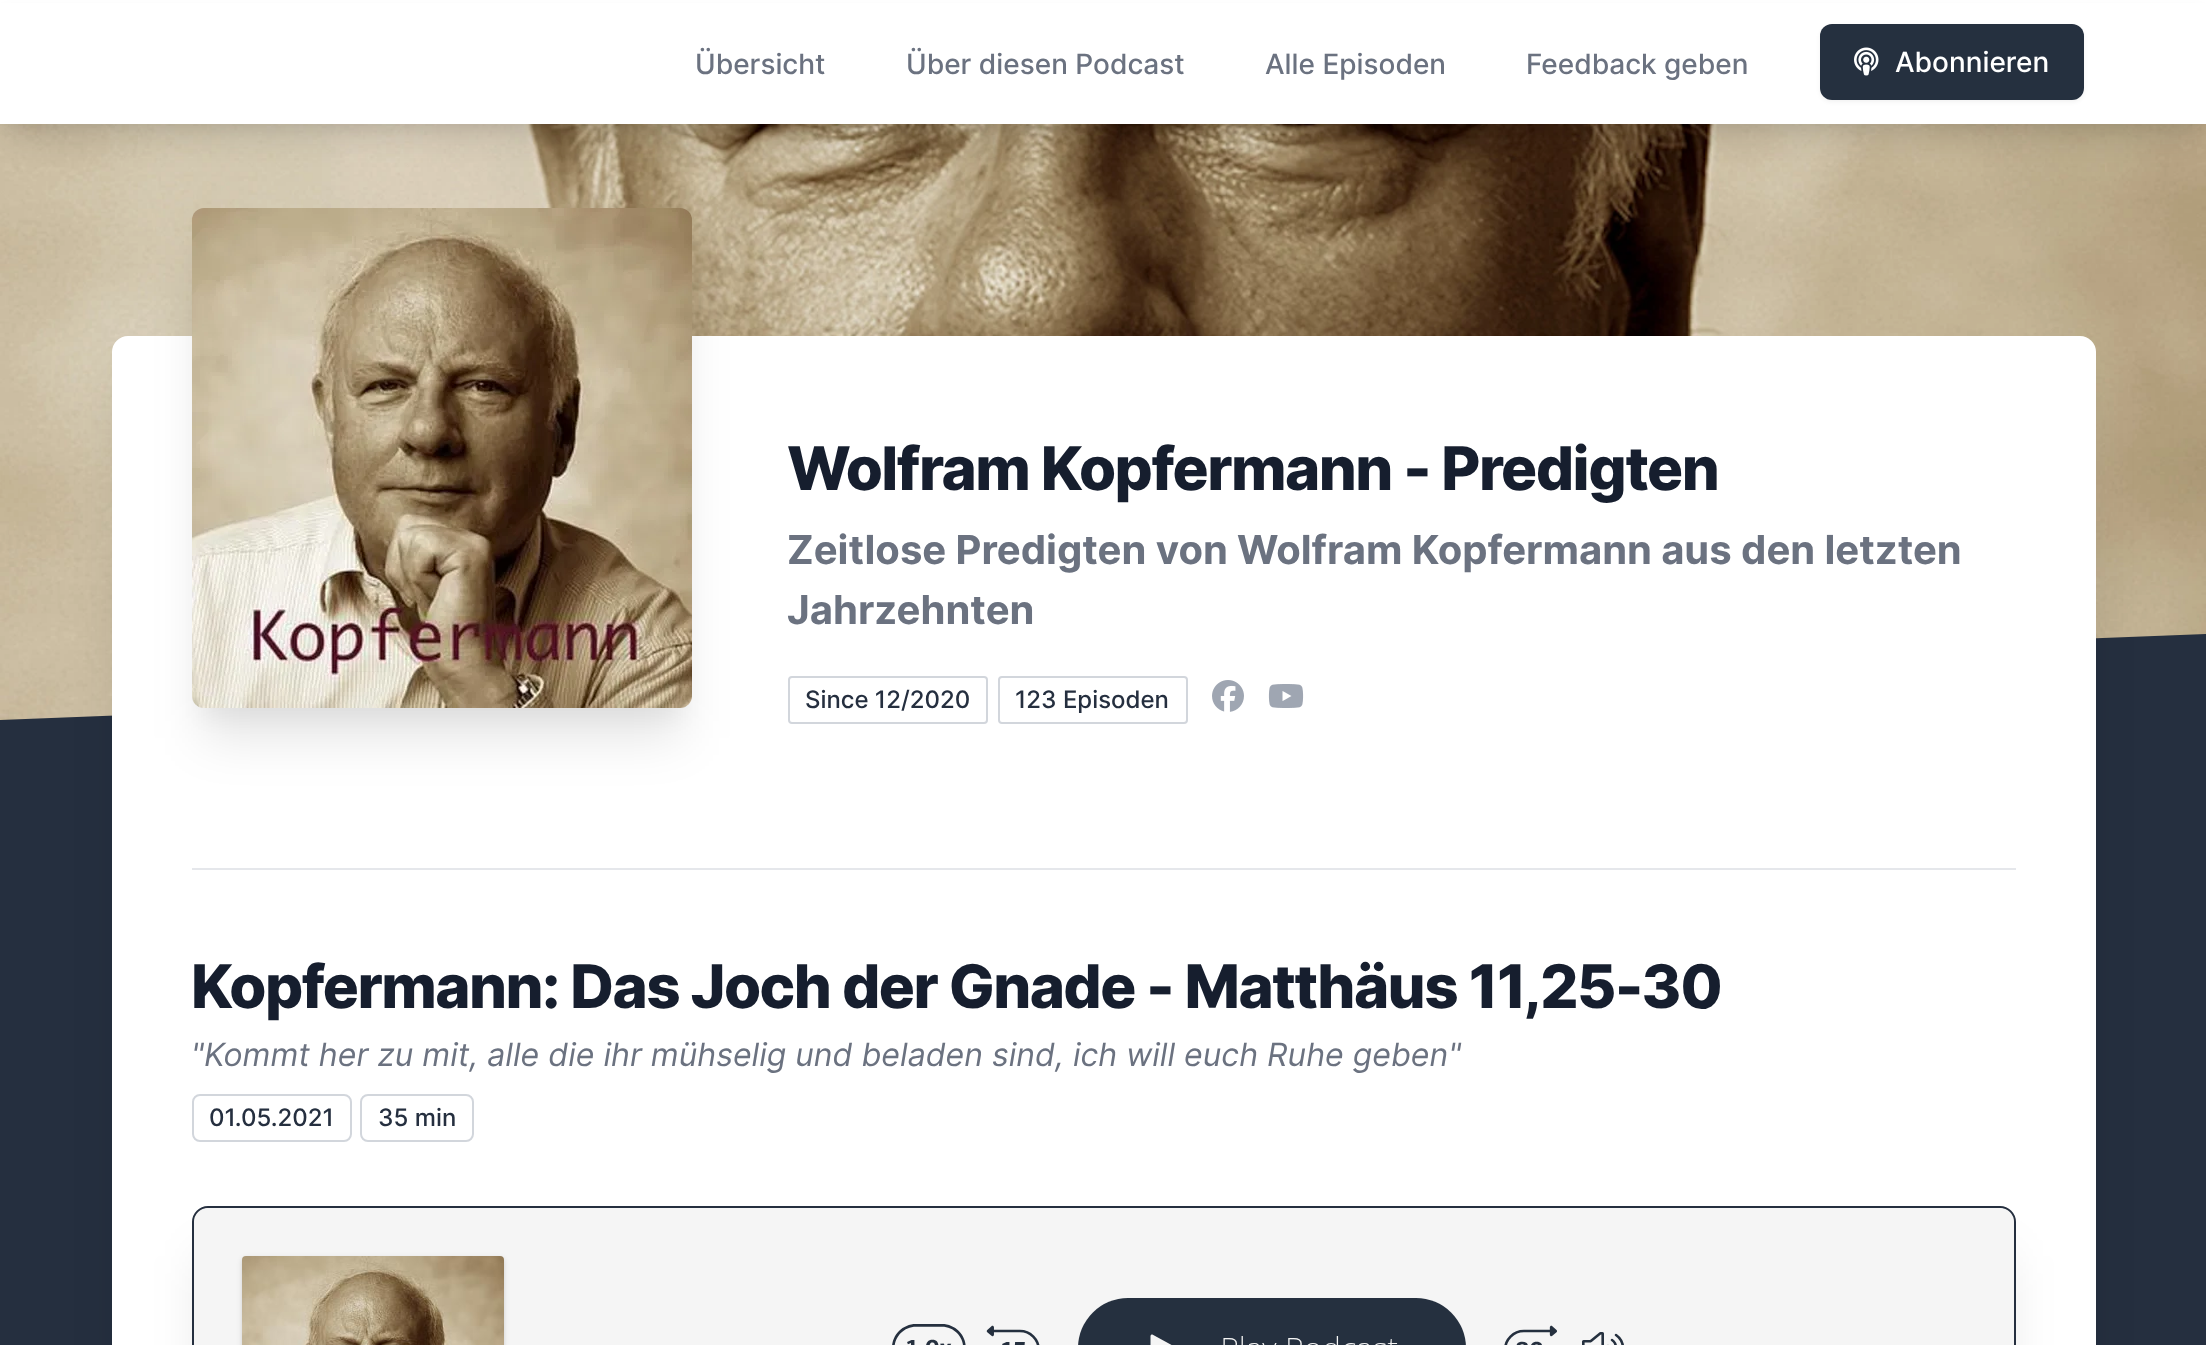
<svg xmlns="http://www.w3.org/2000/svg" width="2206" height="1345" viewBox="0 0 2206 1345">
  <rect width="100%" height="100%" fill="#fff"/>
  <image x="0" y="124" width="2206" height="596" href="img/2.png"/>
  <path d="M4 12h2198v116H4z" fill="#0000000d" filter="blur(6px)"/>
  <path d="M6 26h2194v112H6z" fill="#0000001a" filter="blur(15px)"/>
  <path d="M0 3h2206v121H0z" fill="#fff"/>
  <rect x="1820" y="26" width="264" height="76" rx="12" fill="#0000000d" filter="blur(2px)"/>
  <rect x="1820" y="24" width="264" height="76" rx="12" fill="#25303f"/>
  <image x="1854" y="47" width="25" height="29" href="img/1.png"/>
  <path d="M2206 634V720H0Z" fill="#252f3f"/>
  <path d="M0 720h2206v625H0z" fill="#252f3f"/>
  <rect x="122" y="386" width="1964" height="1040" rx="6" fill="#0000001a" filter="blur(25px)"/>
  <rect x="112" y="336" width="1984" height="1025" rx="16" fill="#fff"/>
  <rect x="202" y="238" width="480" height="480" rx="2" fill="#0000000a" filter="blur(10px)"/>
  <rect x="202" y="258" width="480" height="480" rx="2" fill="#0000001a" filter="blur(25px)"/>
  <image x="192" y="208" width="500" height="500" href="img/3.png"/>
  <rect x="789" y="677" width="198" height="46" rx="3" fill="none" stroke="#d2d6dc" stroke-width="2"/>
  <rect x="999" y="677" width="188" height="46" rx="3" fill="none" stroke="#d2d6dc" stroke-width="2"/>
  <image x="1212" y="680" width="32" height="32" href="img/4.png"/>
  <image x="1268" y="684" width="36" height="24" href="img/5.png"/>
  <path d="M192 868h1824v2H192z" fill="#e5e7eb"/>
  <rect x="193" y="1095" width="158" height="46" rx="7" fill="none" stroke="#d2d6dc" stroke-width="2"/>
  <rect x="361" y="1095" width="112" height="46" rx="7" fill="none" stroke="#d2d6dc" stroke-width="2"/>
  <rect x="202" y="1256" width="1804" height="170" rx="6" fill="#0000001a" filter="blur(25px)"/>
  <rect x="193" y="1207" width="1822" height="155" rx="15" fill="#f5f5f5" stroke="#252f3f" stroke-width="2"/>
  <image x="194" y="1208" width="1820" height="137" href="img/6.png"/>
  <g font-family="Inter" font-size="28" font-weight="500" fill="#6b7280">
    <text x="695" y="74">Übersicht</text>
    <text x="906" y="74">Über diesen Podcast</text>
    <text x="1265" y="74">Alle Episoden</text>
    <text x="1526" y="74">Feedback geben</text>
  </g>
  <text x="1895" y="72" font-family="Inter" font-size="28" font-weight="500" fill="#fff">Abonnieren</text>
  <text x="787" y="490" font-family="Inter" font-size="60" font-weight="800" letter-spacing="-1.5" fill="#161e2e">Wolfram Kopfermann - Predigten</text>
  <g font-family="Inter" font-size="40" font-weight="bold" fill="#6b7280">
    <text x="787" y="564">Zeitlose Predigten von Wolfram Kopfermann aus den letzten</text>
    <text x="787" y="624">Jahrzehnten</text>
  </g>
  <g font-family="Inter" font-size="24" font-weight="500" fill="#252f3f">
    <text x="805" y="708">Since 12/2020</text>
    <text x="1015" y="708">123 Episoden</text>
  </g>
  <text x="191" y="1008" font-family="Inter" font-size="60" font-weight="800" letter-spacing="-1.5" fill="#161e2e">Kopfermann: Das Joch der Gnade - Matthäus 11,25-30</text>
  <text x="191" y="1066" font-family="Inter" font-size="32" font-style="italic" fill="#6b7280">"Kommt her zu mit, alle die ihr mühselig und beladen sind, ich will euch Ruhe geben"</text>
  <g font-family="Inter" font-size="24" font-weight="500" fill="#252f3f">
    <text x="209" y="1126">01.05.2021</text>
    <text x="378" y="1126">35 min</text>
  </g>
</svg>
